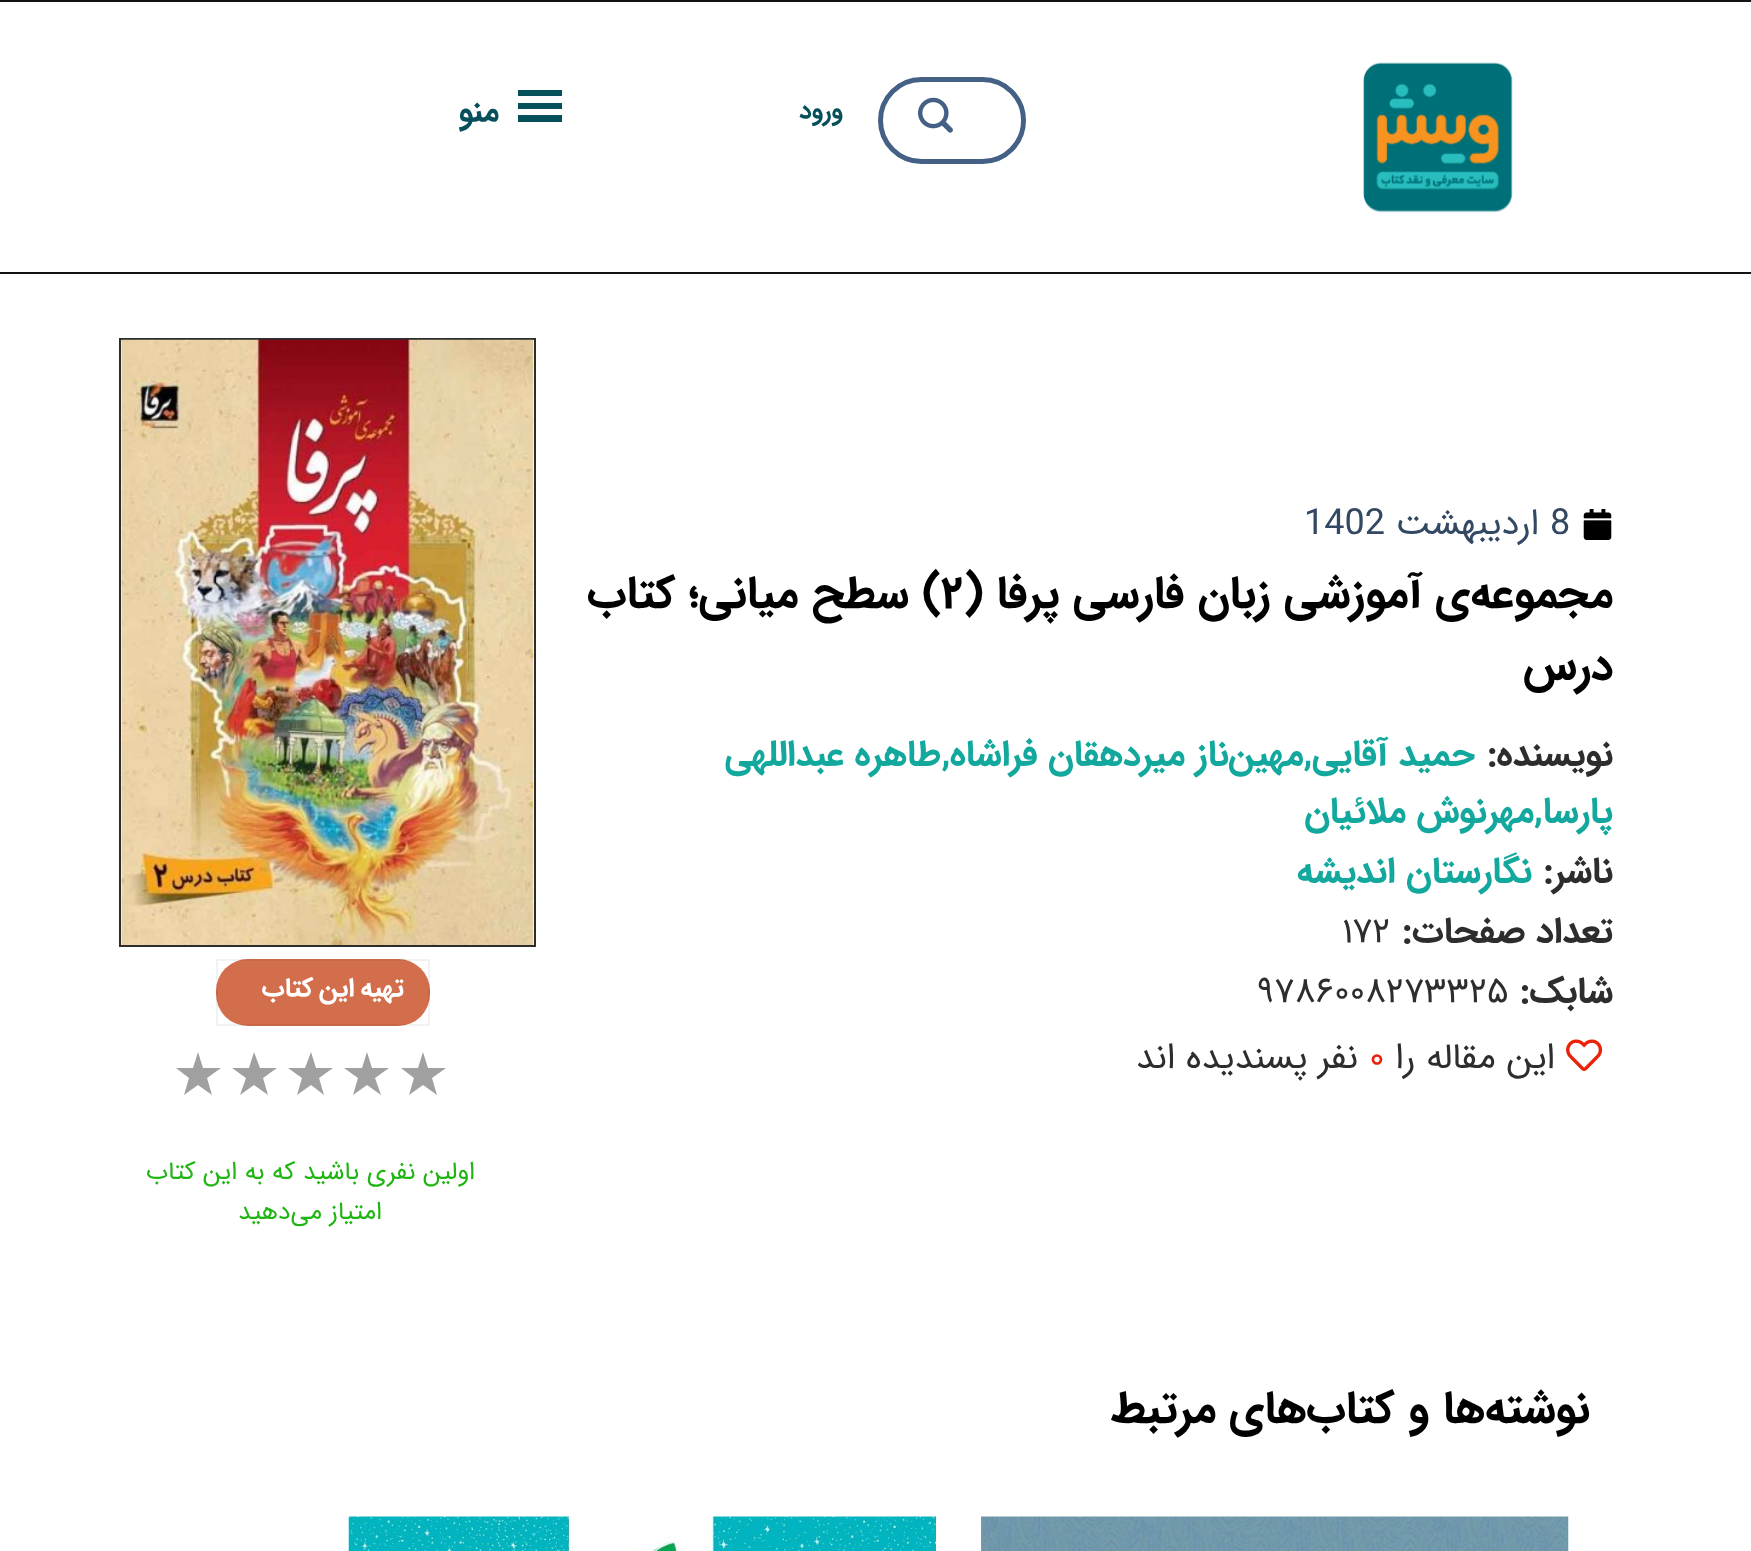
<svg xmlns="http://www.w3.org/2000/svg" width="1751" height="1551" viewBox="0 0 1751 1551">
  <rect width="100%" height="100%" fill="#fff"/>
  <path d="M0 0h1751v2H0z" fill="#141313"/>
  <image x="1363" y="62" width="150" height="151" href="img/1.png"/>
  <rect x="880.5" y="79.5" width="143" height="82" rx="41" fill="none" stroke="#446084" stroke-width="5"/>
  <image x="918" y="97" width="35" height="36" href="img/2.png"/>
  <path d="M518 122H562V115H518ZM518 90V96H562V90ZM518 109H562V103H518Z" fill="#06505b"/>
  <path d="M0 272h1751v2H0z" fill="#141313"/>
  <image x="1583" y="509" width="29" height="31" href="img/3.png"/>
  <image x="1566" y="1039" width="37" height="32" href="img/4.png"/>
  <path d="M120 339h415v607H120z" fill="none" stroke="#2e2d2d" stroke-width="2"/>
  <image x="121" y="339" width="413" height="606" href="img/5.png"/>
  <rect x="216" y="959" width="214" height="67" rx="32" fill="#d26e4b"/>
  <path d="M217 960h212v65H217z" fill="none" stroke="#0000000d" stroke-width="2"/>
  <path d="M423 1052L428 1068H446L432 1078L437 1095L423 1085L409 1095L414 1078L401 1068H418Z" fill="#a0a0a0"/>
  <path d="M367 1052L372 1068H389L375 1078L381 1095L367 1085L353 1095L358 1078L344 1068H362Z" fill="#a0a0a0"/>
  <path d="M311 1052L316 1068H333L319 1078L324 1095L311 1085L297 1095L302 1078L288 1068H305Z" fill="#a0a0a0"/>
  <path d="M254 1052L260 1068H277L263 1078L268 1095L254 1085L240 1095L246 1078L232 1068H249Z" fill="#a0a0a0"/>
  <path d="M198 1052L203 1068H221L207 1078L212 1095L198 1085L184 1095L189 1078L176 1068H193Z" fill="#a0a0a0"/>
  <image x="981" y="1516" width="588" height="35" href="img/6.png"/>
  <image x="348" y="1516" width="588" height="35" href="img/7.png"/>
  <text x="843" y="118" font-family="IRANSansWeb" font-size="25" font-weight="bold" direction="rtl" fill="#06505b">ورود</text>
  <text x="499" y="121" font-family="IRANSansWeb" font-size="32" font-weight="bold" letter-spacing="1" direction="rtl" fill="#06505b">منو</text>
  <text x="1550" y="534" font-family="IRANSansWeb" font-size="36" fill="#334862">8</text>
  <text x="1539" y="534" font-family="IRANSansWeb" font-size="36" direction="rtl" fill="#334862">اردیبهشت</text>
  <text x="1304" y="534" font-family="IRANSansWeb" font-size="36" fill="#334862">1402</text>
  <text x="1613" y="607" font-family="IRANSansWeb" font-size="45" font-weight="bold" direction="rtl" fill="#000">مجموعه‌ی آموزشی زبان فارسی پرفا (</text>
  <text x="941" y="607" font-family="IRANSansWeb" font-size="45" font-weight="bold" fill="#000">۲</text>
  <g font-family="IRANSansWeb" font-size="45" font-weight="bold" direction="rtl" fill="#000">
    <text x="941" y="607">) سطح میانی؛ کتاب</text>
    <text x="1613" y="679">درس</text>
  </g>
  <text x="1613" y="765" font-family="IRANSansWeb" font-size="36" font-weight="bold" direction="rtl" fill="#2e2d2d">نویسنده:</text>
  <g font-family="IRANSansWeb" font-size="36" font-weight="bold" direction="rtl" fill="#12a89d">
    <text x="1475" y="765">حمید آقایی,مهین‌ناز میردهقان فراشاه,طاهره عبداللهی</text>
    <text x="1613" y="822">پارسا,مهرنوش ملائیان</text>
  </g>
  <text x="1613" y="882" font-family="IRANSansWeb" font-size="36" font-weight="bold" direction="rtl" fill="#2e2d2d">ناشر:</text>
  <text x="1532" y="882" font-family="IRANSansWeb" font-size="36" font-weight="bold" direction="rtl" fill="#12a89d">نگارستان اندیشه</text>
  <text x="1613" y="942" font-family="IRANSansWeb" font-size="36" font-weight="bold" direction="rtl" fill="#2e2d2d">تعداد صفحات:</text>
  <text x="1342" y="942" font-family="IRANSansWeb" font-size="36" fill="#2e2d2d">۱۷۲</text>
  <text x="1613" y="1002" font-family="IRANSansWeb" font-size="36" font-weight="bold" direction="rtl" fill="#2e2d2d">شابک:</text>
  <text x="1257" y="1002" font-family="IRANSansWeb" font-size="36" fill="#2e2d2d">۹۷۸۶۰۰۸۲۷۳۳۲۵</text>
  <text x="1555" y="1068" font-family="IRANSansWeb" font-size="36" direction="rtl" fill="#2e2d2d">این مقاله را</text>
  <text x="1369" y="1068" font-family="IRANSansWeb" font-size="36" fill="#ea220b">۰</text>
  <text x="1358" y="1068" font-family="IRANSansWeb" font-size="36" direction="rtl" fill="#2e2d2d">نفر پسندیده اند</text>
  <text x="404" y="996" word-spacing="-2" font-family="IRANSansWeb" font-size="26.25" font-weight="bold" letter-spacing="0.75" direction="rtl" fill="#fff">تهیه این کتاب</text>
  <g font-family="IRANSansWeb" font-size="25.25" direction="rtl" fill="#1fb512">
    <text x="475" y="1179">اولین نفری باشید که به این کتاب</text>
    <text x="382" y="1219">امتیاز می‌دهید</text>
  </g>
  <text x="1590" y="1422" font-family="IRANSansWeb" font-size="45" font-weight="bold" direction="rtl" fill="#000">نوشته‌ها و کتاب‌های مرتبط</text>
</svg>
